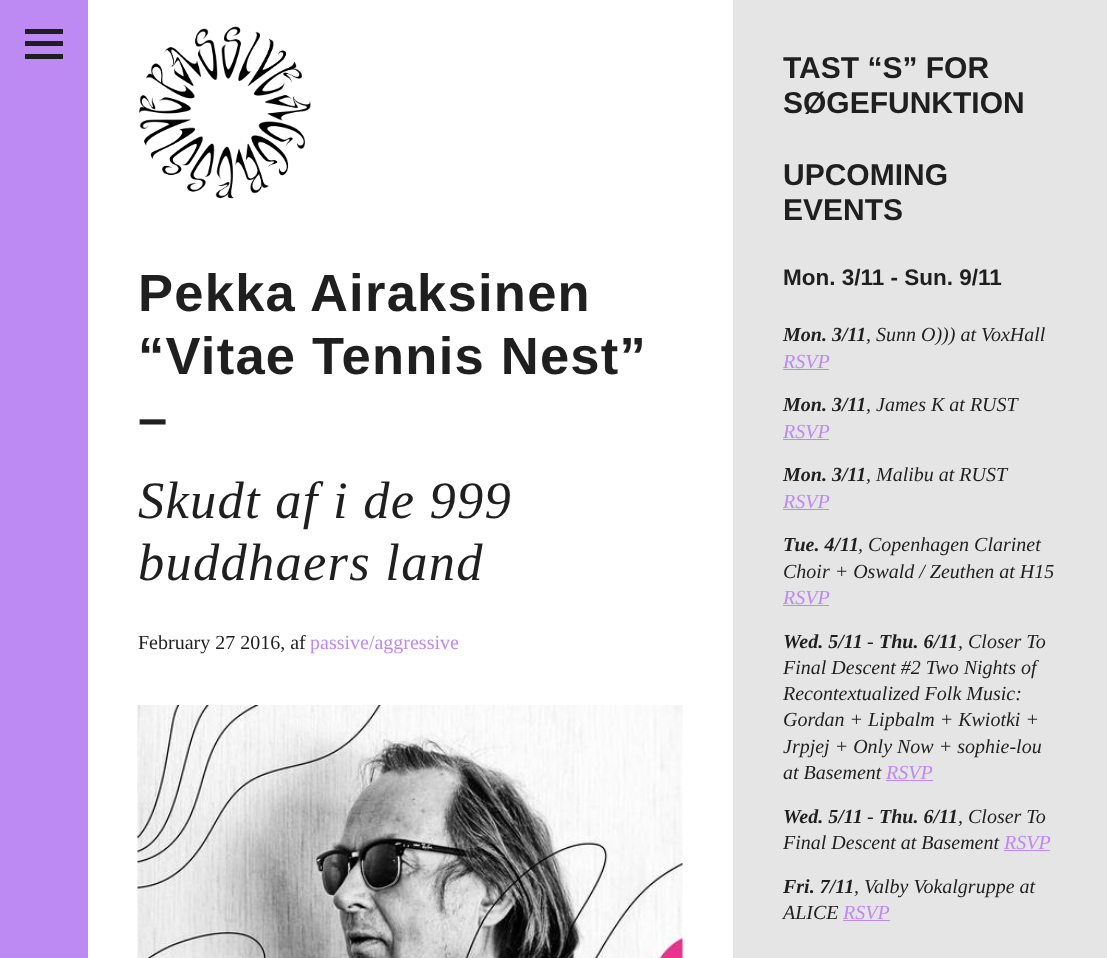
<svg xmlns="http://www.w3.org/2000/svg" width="1107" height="958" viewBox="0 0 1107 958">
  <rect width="100%" height="100%" fill="#fff"/>
  <path d="M0 0h88v958H0z" fill="#bd89f2"/>
  <path d="M25 41h38v5H25z" fill="#1f1f1f"/>
  <path d="M25 29h38v5H25z" fill="#1f1f1f"/>
  <path d="M25 54h38v5H25z" fill="#1f1f1f"/>
  <image x="139" y="26" width="172" height="173" href="img/1.png"/>
  <image x="137" y="705" width="546" height="253" href="img/2.png"/>
  <path d="M733 0h374v958H733z" fill="#e5e5e5"/>
  <path d="M783 369h46v1H783z" fill="#bd89f2"/>
  <path d="M783 439h46v1H783z" fill="#bd89f2"/>
  <path d="M783 509h46v1H783z" fill="#bd89f2"/>
  <path d="M783 605h46v1H783z" fill="#bd89f2"/>
  <path d="M886 780h47v1H886z" fill="#bd89f2"/>
  <path d="M1004 850h46v1H1004z" fill="#bd89f2"/>
  <path d="M843 920h47v1H843z" fill="#bd89f2"/>
  <g font-family="Liberation Sans" font-size="52.5" font-weight="bold" letter-spacing="1.25" fill="#1f1f1f">
    <text x="138" y="311">Pekka Airaksinen</text>
    <text x="138" y="374">“Vitae Tennis Nest”</text>
    <text x="138" y="436">–</text>
  </g>
  <g font-family="Liberation Serif" font-size="52.5" font-style="italic" letter-spacing="1.25" fill="#1f1f1f">
    <text x="138" y="518">Skudt af i de 999</text>
    <text x="138" y="580">buddhaers land</text>
  </g>
  <text x="138" y="649" font-family="Liberation Serif" font-size="20" fill="#1f1f1f">February 27 2016, af</text>
  <text x="310" y="649" font-family="Liberation Serif" font-size="20" fill="#bd89f2">passive/aggressive</text>
  <g font-family="Liberation Sans" font-size="30" font-weight="bold" fill="#1f1f1f">
    <text x="783" y="78">TAST “S” FOR</text>
    <text x="783" y="113">SØGEFUNKTION</text>
    <text x="783" y="185">UPCOMING</text>
    <text x="783" y="220">EVENTS</text>
  </g>
  <text x="783" y="285" font-family="Liberation Sans" font-size="22.5" font-weight="bold" fill="#1f1f1f">Mon. 3/11 - Sun. 9/11</text>
  <text x="783" y="341" font-family="Liberation Serif" font-size="20" font-weight="bold" font-style="italic" fill="#1f1f1f">Mon. 3/11</text>
  <text x="866" y="341" font-family="Liberation Serif" font-size="20" font-style="italic" fill="#1f1f1f">, Sunn O))) at VoxHall</text>
  <text x="783" y="368" font-family="Liberation Serif" font-size="20" font-style="italic" fill="#bd89f2">RSVP</text>
  <text x="783" y="411" font-family="Liberation Serif" font-size="20" font-weight="bold" font-style="italic" fill="#1f1f1f">Mon. 3/11</text>
  <text x="866" y="411" font-family="Liberation Serif" font-size="20" font-style="italic" fill="#1f1f1f">, James K at RUST</text>
  <text x="783" y="438" font-family="Liberation Serif" font-size="20" font-style="italic" fill="#bd89f2">RSVP</text>
  <text x="783" y="481" font-family="Liberation Serif" font-size="20" font-weight="bold" font-style="italic" fill="#1f1f1f">Mon. 3/11</text>
  <text x="866" y="481" font-family="Liberation Serif" font-size="20" font-style="italic" fill="#1f1f1f">, Malibu at RUST</text>
  <text x="783" y="508" font-family="Liberation Serif" font-size="20" font-style="italic" fill="#bd89f2">RSVP</text>
  <text x="783" y="551" font-family="Liberation Serif" font-size="20" font-weight="bold" font-style="italic" fill="#1f1f1f">Tue. 4/11</text>
  <g font-family="Liberation Serif" font-size="20" font-style="italic" fill="#1f1f1f">
    <text x="858" y="551">, Copenhagen Clarinet</text>
    <text x="783" y="578">Choir + Oswald / Zeuthen at H15</text>
  </g>
  <text x="783" y="604" font-family="Liberation Serif" font-size="20" font-style="italic" fill="#bd89f2">RSVP</text>
  <text x="783" y="648" font-family="Liberation Serif" font-size="20" font-weight="bold" font-style="italic" fill="#1f1f1f">Wed. 5/11</text>
  <text x="867" y="648" font-family="Liberation Serif" font-size="20" font-style="italic" fill="#1f1f1f">-</text>
  <text x="879" y="648" font-family="Liberation Serif" font-size="20" font-weight="bold" font-style="italic" fill="#1f1f1f">Thu. 6/11</text>
  <g font-family="Liberation Serif" font-size="20" font-style="italic" fill="#1f1f1f">
    <text x="958" y="648">, Closer To</text>
    <text x="783" y="674">Final Descent #2 Two Nights of</text>
    <text x="783" y="700">Recontextualized Folk Music:</text>
    <text x="783" y="726">Gordan + Lipbalm + Kwiotki +</text>
    <text x="783" y="753">Jrpjej + Only Now + sophie-lou</text>
    <text x="783" y="779">at Basement</text>
  </g>
  <text x="886" y="779" font-family="Liberation Serif" font-size="20" font-style="italic" fill="#bd89f2">RSVP</text>
  <text x="783" y="823" font-family="Liberation Serif" font-size="20" font-weight="bold" font-style="italic" fill="#1f1f1f">Wed. 5/11</text>
  <text x="867" y="823" font-family="Liberation Serif" font-size="20" font-style="italic" fill="#1f1f1f">-</text>
  <text x="879" y="823" font-family="Liberation Serif" font-size="20" font-weight="bold" font-style="italic" fill="#1f1f1f">Thu. 6/11</text>
  <g font-family="Liberation Serif" font-size="20" font-style="italic" fill="#1f1f1f">
    <text x="958" y="823">, Closer To</text>
    <text x="783" y="849">Final Descent at Basement</text>
  </g>
  <text x="1004" y="849" font-family="Liberation Serif" font-size="20" font-style="italic" fill="#bd89f2">RSVP</text>
  <text x="783" y="893" font-family="Liberation Serif" font-size="20" font-weight="bold" font-style="italic" fill="#1f1f1f">Fri. 7/11</text>
  <g font-family="Liberation Serif" font-size="20" font-style="italic" fill="#1f1f1f">
    <text x="854" y="893">, Valby Vokalgruppe at</text>
    <text x="783" y="919">ALICE</text>
  </g>
  <text x="843" y="919" font-family="Liberation Serif" font-size="20" font-style="italic" fill="#bd89f2">RSVP</text>
</svg>
